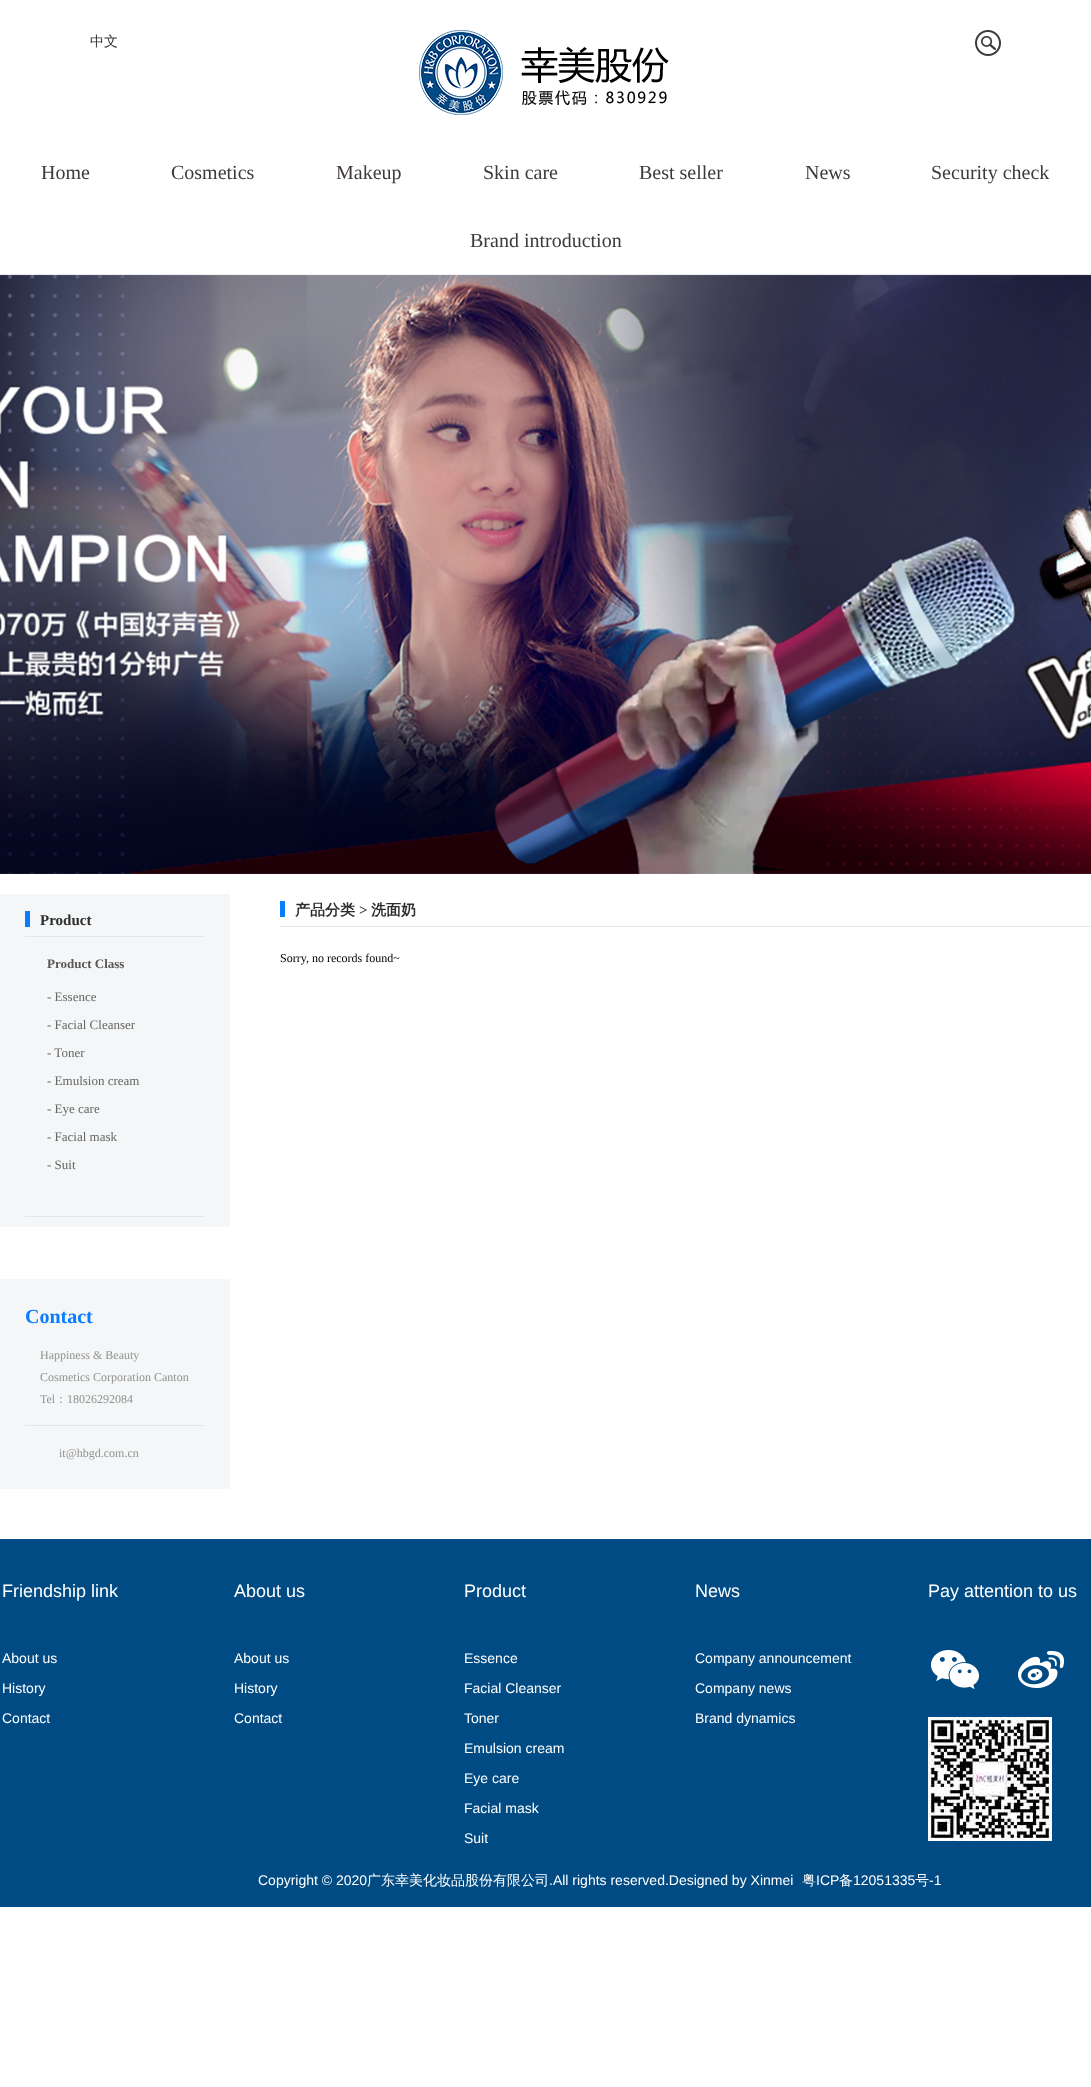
<svg xmlns="http://www.w3.org/2000/svg" width="1091" height="2087" viewBox="0 0 1091 2087">
  <rect width="100%" height="100%" fill="#fff"/>
  <image x="419" y="30" width="250" height="85" href="img/1.png"/>
  <image x="975" y="30" width="26" height="26" href="img/2.png"/>
  <image x="0" y="274" width="1091" height="600" href="img/3.png"/>
  <path d="M0 894h230v333H0z" fill="#f4f6f7"/>
  <path d="M25 936h180v1H25z" fill="#e7e7e7"/>
  <path d="M25 911h5v16H25z" fill="#0a7dff"/>
  <path d="M25 1216h180v1H25z" fill="#e7e7e7"/>
  <path d="M0 1279h230v210H0z" fill="#f4f6f7"/>
  <path d="M25 1425h180v1H25z" fill="#e7e7e7"/>
  <path d="M280 926h811v1H280z" fill="#e7e7e7"/>
  <path d="M280 901h5v16H280z" fill="#0a7dff"/>
  <path d="M0 1539h1091v368H0z" fill="#004b84"/>
  <image x="931" y="1650" width="133" height="39" href="img/4.png"/>
  <image x="928" y="1717" width="124" height="124" href="img/5.png"/>
  <text x="90" y="46" font-family="WenQuanYi Zen Hei" font-size="14" font-weight="500" fill="#333">中文</text>
  <g font-family="Liberation Serif" font-size="20" fill="#3e3a39">
    <text x="41" y="179">Home</text>
    <text x="171" y="179">Cosmetics</text>
    <text x="336" y="179">Makeup</text>
    <text x="483" y="179">Skin care</text>
    <text x="639" y="179">Best seller</text>
    <text x="805" y="179">News</text>
    <text x="931" y="179">Security check</text>
    <text x="470" y="247">Brand introduction</text>
  </g>
  <text x="40" y="925" font-family="Liberation Serif" font-size="15" font-weight="bold" fill="#2d2d2d">Product</text>
  <text x="47" y="968" font-family="Liberation Serif" font-size="13" font-weight="bold" fill="#585858">Product Class</text>
  <g font-family="Liberation Serif" font-size="13" fill="#666">
    <text x="47" y="1001">- Essence</text>
    <text x="47" y="1029">- Facial Cleanser</text>
    <text x="47" y="1057">- Toner</text>
    <text x="47" y="1085">- Emulsion cream</text>
    <text x="47" y="1113">- Eye care</text>
    <text x="47" y="1141">- Facial mask</text>
    <text x="47" y="1169">- Suit</text>
  </g>
  <text x="25" y="1323" font-family="Liberation Serif" font-size="20" font-weight="bold" fill="#0a7dff">Contact</text>
  <g font-family="Liberation Serif" font-size="12" fill="#929292">
    <text x="40" y="1359">Happiness &amp; Beauty</text>
    <text x="40" y="1381">Cosmetics Corporation Canton</text>
    <text x="40" y="1403">Tel</text>
  </g>
  <text x="55" y="1403" font-family="WenQuanYi Zen Hei" font-size="12" font-weight="500" fill="#929292">：</text>
  <g font-family="Liberation Serif" font-size="12" fill="#929292">
    <text x="67" y="1403">18026292084</text>
    <text x="59" y="1457">it@hbgd.com.cn</text>
  </g>
  <text x="295" y="915" font-family="WenQuanYi Zen Hei" font-size="15" font-weight="bold" fill="#2d2d2d">产品分类</text>
  <text x="359" y="915" font-family="Liberation Serif" font-size="15" font-weight="bold" fill="#2d2d2d">&gt;</text>
  <text x="371" y="915" font-family="WenQuanYi Zen Hei" font-size="15" font-weight="bold" fill="#2d2d2d">洗面奶</text>
  <text x="280" y="962" font-family="Liberation Serif" font-size="12" fill="#000">Sorry, no records found~</text>
  <g font-family="Liberation Sans" font-size="18" fill="#fff">
    <text x="2" y="1597">Friendship link</text>
    <text x="234" y="1597">About us</text>
    <text x="464" y="1597">Product</text>
    <text x="695" y="1597">News</text>
    <text x="928" y="1597">Pay attention to us</text>
  </g>
  <g font-family="Liberation Sans" font-size="14" fill="#fff">
    <text x="2" y="1663">About us</text>
    <text x="2" y="1693">History</text>
    <text x="2" y="1723">Contact</text>
    <text x="234" y="1663">About us</text>
    <text x="234" y="1693">History</text>
    <text x="234" y="1723">Contact</text>
    <text x="464" y="1663">Essence</text>
    <text x="464" y="1693">Facial Cleanser</text>
    <text x="464" y="1723">Toner</text>
    <text x="464" y="1753">Emulsion cream</text>
    <text x="464" y="1783">Eye care</text>
    <text x="464" y="1813">Facial mask</text>
    <text x="464" y="1843">Suit</text>
    <text x="695" y="1663">Company announcement</text>
    <text x="695" y="1693">Company news</text>
    <text x="695" y="1723">Brand dynamics</text>
    <text x="258" y="1885">Copyright © 2020</text>
  </g>
  <text x="367" y="1885" font-family="WenQuanYi Zen Hei" font-size="14" font-weight="500" fill="#fff">广东幸美化妆品股份有限公司</text>
  <text x="549" y="1885" font-family="Liberation Sans" font-size="14" fill="#fff">.All rights reserved.Designed by Xinmei</text>
  <text x="802" y="1885" font-family="WenQuanYi Zen Hei" font-size="14" font-weight="500" fill="#fff">粤</text>
  <text x="816" y="1885" font-family="Liberation Sans" font-size="14" fill="#fff">ICP</text>
  <text x="839" y="1885" font-family="WenQuanYi Zen Hei" font-size="14" font-weight="500" fill="#fff">备</text>
  <text x="853" y="1885" font-family="Liberation Sans" font-size="14" fill="#fff">12051335</text>
  <text x="915" y="1885" font-family="WenQuanYi Zen Hei" font-size="14" font-weight="500" fill="#fff">号</text>
  <text x="929" y="1885" font-family="Liberation Sans" font-size="14" fill="#fff">-1</text>
</svg>
